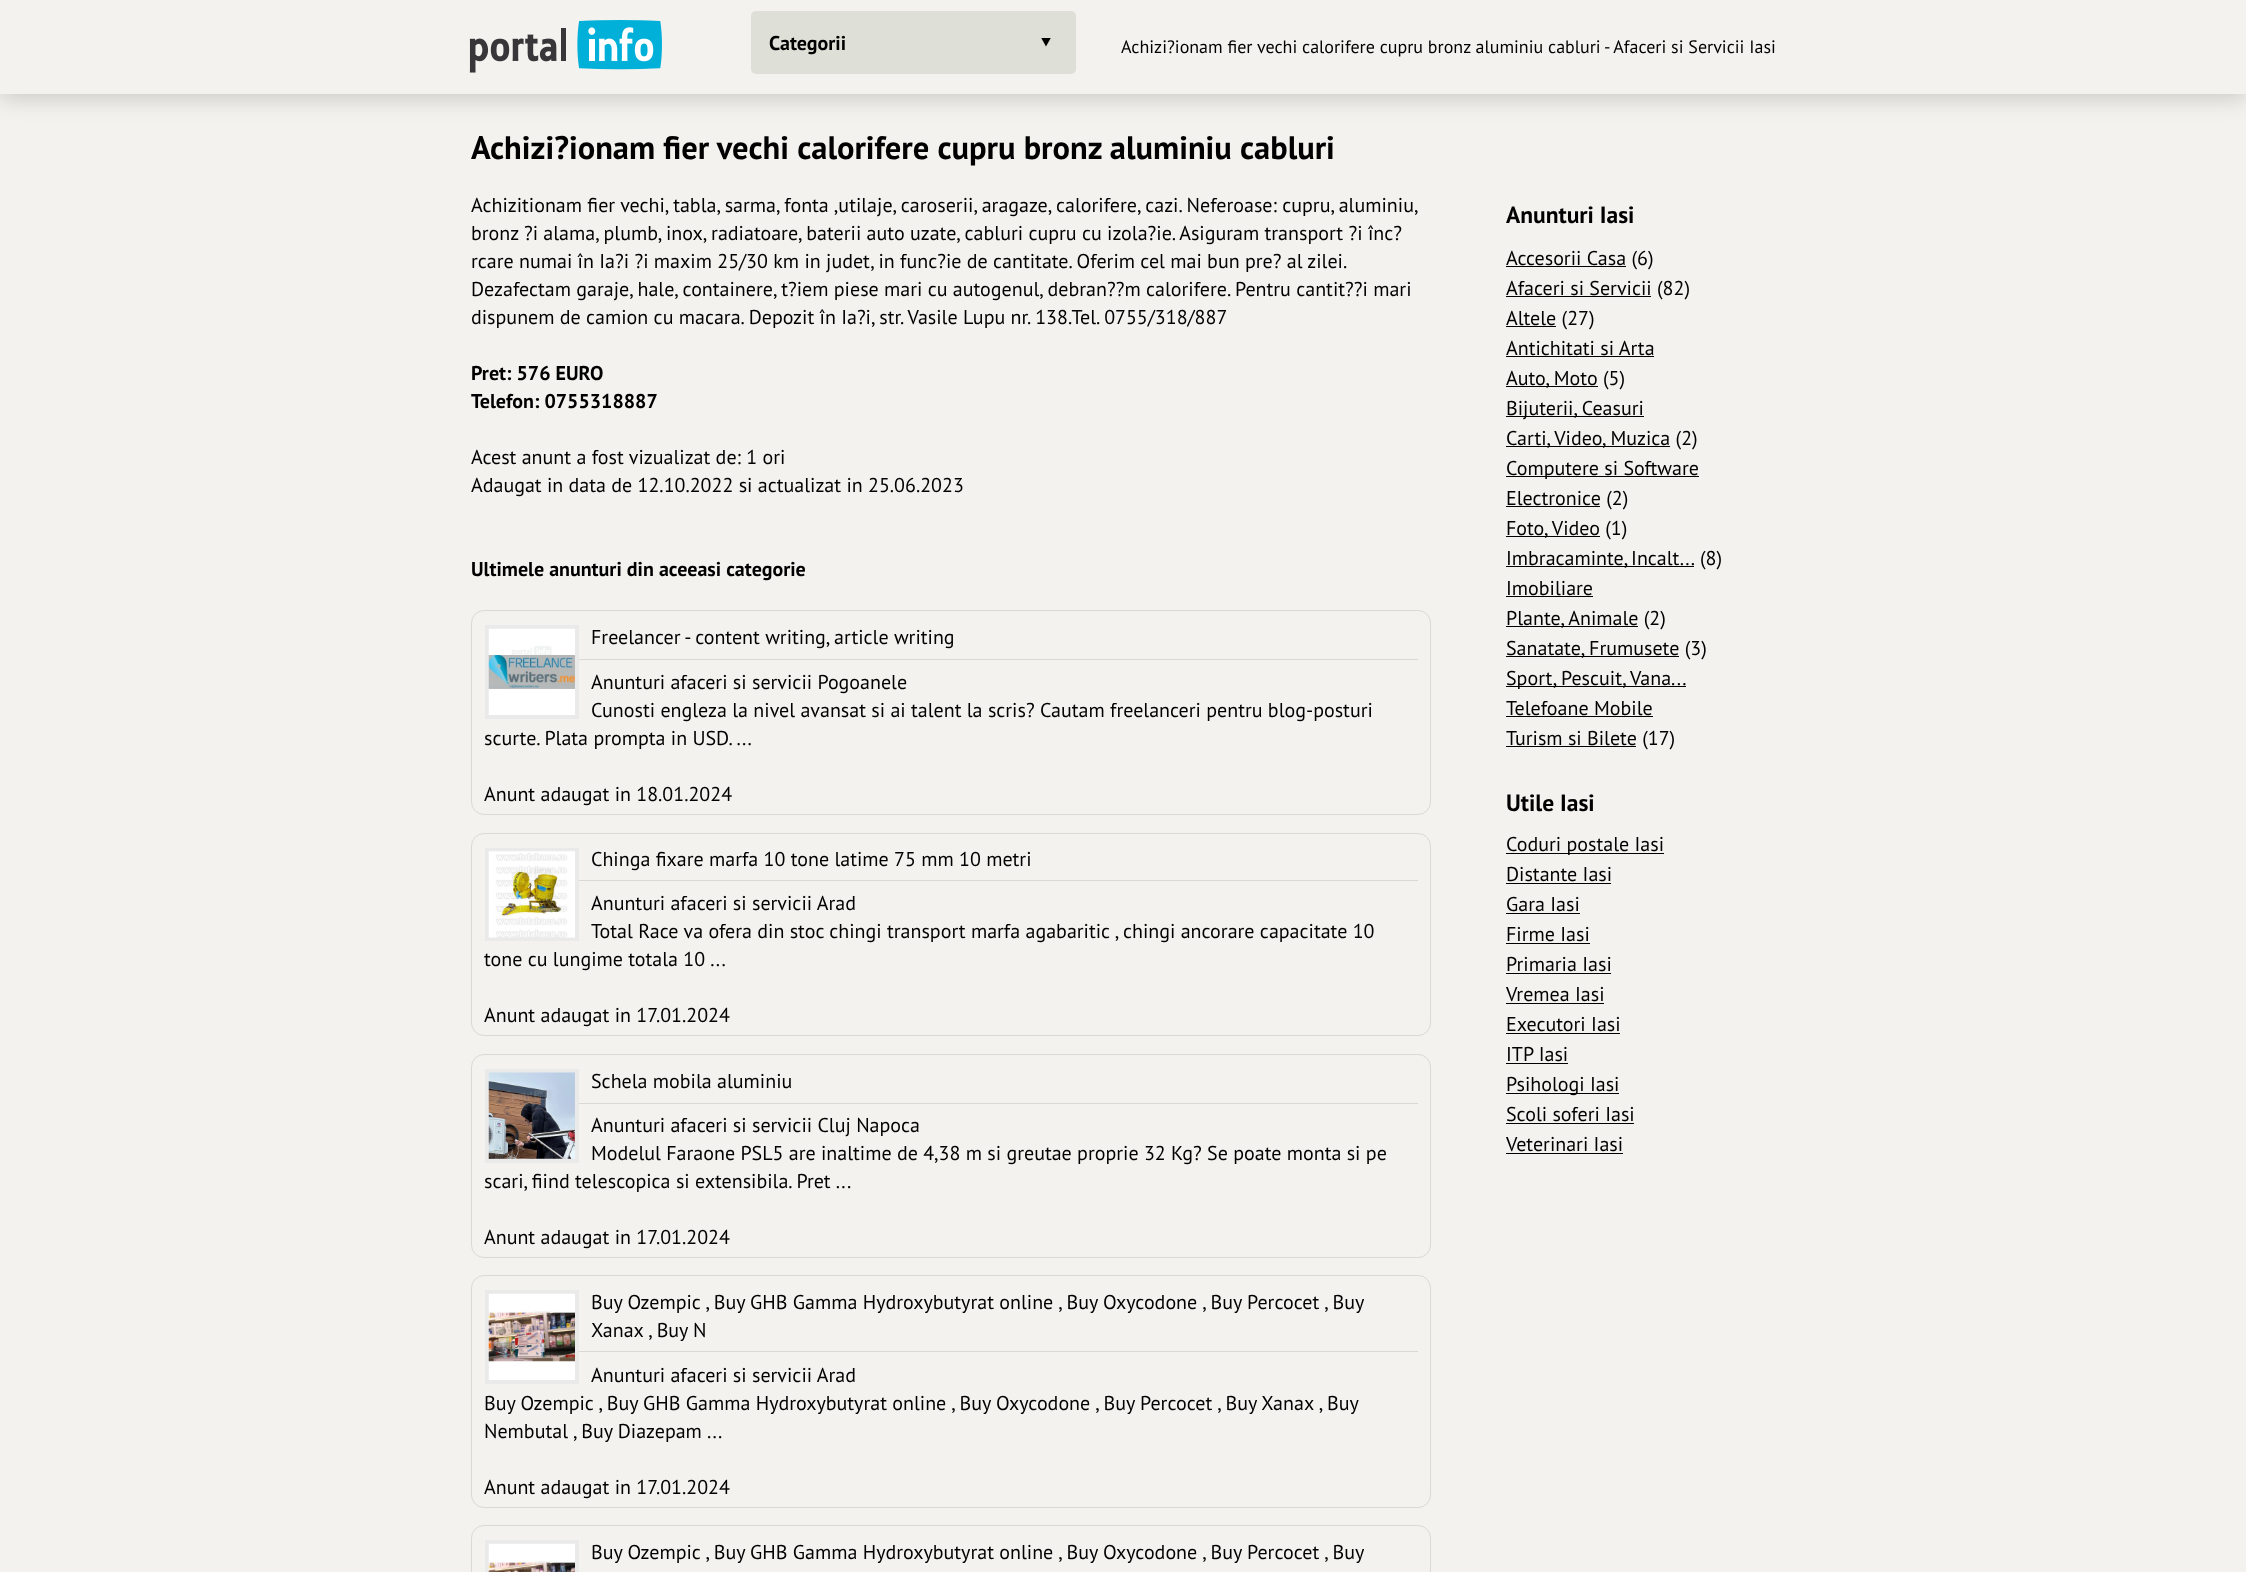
<svg xmlns="http://www.w3.org/2000/svg" width="2246" height="1572" viewBox="0 0 2246 1572">
  <defs>
    <clipPath id="clip1"><path d="M1041 38h10v10H1041z"/></clipPath>
  </defs>
  <rect width="100%" height="100%" fill="#f3f2ee"/>
  <path d="M0 3h2246v93H0z" fill="#00000033" filter="blur(12.5px)"/>
  <path d="M0 0h2246v94H0z" fill="#f3f2ee"/>
  <image x="469" y="20" width="193" height="53" href="img/1.png"/>
  <rect x="751" y="11" width="325" height="63" rx="5" fill="#dedfd6"/>
  <g clip-path="url(#clip1)">
    <path d="M1041 37.5H1051L1046 46.5Z" fill="#000"/>
  </g>
  <rect x="471.5" y="610.5" width="959" height="204" rx="12.5" fill="none" stroke="#dad9d6"/>
  <path d="M487 627h90v90H487z" fill="none" stroke="#eaeaea" stroke-width="4"/>
  <image x="488" y="628" width="87" height="87" href="img/2.png"/>
  <path d="M579 659h839v1H579z" fill="#dad9d6"/>
  <rect x="471.5" y="833.5" width="959" height="202" rx="12.5" fill="none" stroke="#dad9d6"/>
  <path d="M487 850h90v89H487z" fill="none" stroke="#eaeaea" stroke-width="4"/>
  <image x="488" y="851" width="87" height="87" href="img/3.png"/>
  <path d="M579 880h839v1H579z" fill="#dad9d6"/>
  <rect x="471.5" y="1054.5" width="959" height="203" rx="12.5" fill="none" stroke="#dad9d6"/>
  <path d="M487 1071h90v90H487z" fill="none" stroke="#eaeaea" stroke-width="4"/>
  <image x="488" y="1072" width="87" height="87" href="img/4.png"/>
  <path d="M579 1103h839v1H579z" fill="#dad9d6"/>
  <rect x="471.5" y="1275.5" width="959" height="232" rx="12.5" fill="none" stroke="#dad9d6"/>
  <path d="M487 1292h90v90H487z" fill="none" stroke="#eaeaea" stroke-width="4"/>
  <image x="488" y="1293" width="87" height="87" href="img/5.png"/>
  <path d="M579 1351h839v1H579z" fill="#dad9d6"/>
  <rect x="471.5" y="1525.5" width="959" height="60" rx="12.5" fill="none" stroke="#dad9d6"/>
  <path d="M487 1542h90v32H487z" fill="none" stroke="#eaeaea" stroke-width="4"/>
  <image x="488" y="1543" width="87" height="29" href="img/6.png"/>
  <path d="M1506 266h120v1H1506z" fill="#000"/>
  <path d="M1506 296h145v1H1506z" fill="#000"/>
  <path d="M1506 326h50v1H1506z" fill="#000"/>
  <path d="M1506 356h148v1H1506z" fill="#000"/>
  <path d="M1506 386h92v1H1506z" fill="#000"/>
  <path d="M1506 416h138v1H1506z" fill="#000"/>
  <path d="M1506 446h164v1H1506z" fill="#000"/>
  <path d="M1506 476h193v1H1506z" fill="#000"/>
  <path d="M1506 506h94v1H1506z" fill="#000"/>
  <path d="M1506 536h94v1H1506z" fill="#000"/>
  <path d="M1506 566h188v1H1506z" fill="#000"/>
  <path d="M1506 596h87v1H1506z" fill="#000"/>
  <path d="M1506 626h132v1H1506z" fill="#000"/>
  <path d="M1506 656h173v1H1506z" fill="#000"/>
  <path d="M1506 686h180v1H1506z" fill="#000"/>
  <path d="M1506 716h147v1H1506z" fill="#000"/>
  <path d="M1506 746h130v1H1506z" fill="#000"/>
  <path d="M1506 853h158v1H1506z" fill="#000"/>
  <path d="M1506 883h105v1H1506z" fill="#000"/>
  <path d="M1506 913h74v1H1506z" fill="#000"/>
  <path d="M1506 943h84v1H1506z" fill="#000"/>
  <path d="M1506 973h105v1H1506z" fill="#000"/>
  <path d="M1506 1003h98v1H1506z" fill="#000"/>
  <path d="M1506 1033h114v1H1506z" fill="#000"/>
  <path d="M1506 1063h62v1H1506z" fill="#000"/>
  <path d="M1506 1093h113v1H1506z" fill="#000"/>
  <path d="M1506 1123h128v1H1506z" fill="#000"/>
  <path d="M1506 1153h117v1H1506z" fill="#000"/>
  <text x="769" y="50" font-family="PT Sans" font-size="20" font-weight="bold" fill="#000">Categorii</text>
  <text x="1121" y="53" font-family="PT Sans" font-size="18" fill="#000">Achizi?ionam fier vechi calorifere cupru bronz aluminiu cabluri - Afaceri si Servicii Iasi</text>
  <text x="471" y="159" font-family="PT Sans" font-size="32.5" font-weight="bold" fill="#000">Achizi?ionam fier vechi calorifere cupru bronz aluminiu cabluri</text>
  <g font-family="PT Sans" font-size="20" fill="#000">
    <text x="471" y="212">Achizitionam fier vechi, tabla, sarma, fonta ,utilaje, caroserii, aragaze, calorifere, cazi. Neferoase: cupru, aluminiu,</text>
    <text x="471" y="240">bronz ?i alama, plumb, inox, radiatoare, baterii auto uzate, cabluri cupru cu izola?ie. Asiguram transport ?i înc?</text>
    <text x="471" y="268">rcare numai în Ia?i ?i maxim 25/30 km in judet, in func?ie de cantitate. Oferim cel mai bun pre? al zilei.</text>
    <text x="471" y="296">Dezafectam garaje, hale, containere, t?iem piese mari cu autogenul, debran??m calorifere. Pentru cantit??i mari</text>
    <text x="471" y="324">dispunem de camion cu macara. Depozit în Ia?i, str. Vasile Lupu nr. 138.Tel. 0755/318/887</text>
  </g>
  <g font-family="PT Sans" font-size="20" font-weight="bold" fill="#000">
    <text x="471" y="380">Pret: 576 EURO</text>
    <text x="471" y="408">Telefon: 0755318887</text>
  </g>
  <g font-family="PT Sans" font-size="20" fill="#000">
    <text x="471" y="464">Acest anunt a fost vizualizat de: 1 ori</text>
    <text x="471" y="492">Adaugat in data de 12.10.2022 si actualizat in 25.06.2023</text>
  </g>
  <text x="471" y="576" font-family="PT Sans" font-size="20" font-weight="bold" fill="#000">Ultimele anunturi din aceeasi categorie</text>
  <g font-family="PT Sans" font-size="20" fill="#000">
    <text x="591" y="644">Freelancer - content writing, article writing</text>
    <text x="591" y="689">Anunturi afaceri si servicii Pogoanele</text>
    <text x="591" y="717">Cunosti engleza la nivel avansat si ai talent la scris? Cautam freelanceri pentru blog-posturi</text>
    <text x="484" y="745">scurte. Plata prompta in USD. ...</text>
    <text x="484" y="801">Anunt adaugat in 18.01.2024</text>
    <text x="591" y="866">Chinga fixare marfa 10 tone latime 75 mm 10 metri</text>
    <text x="591" y="910">Anunturi afaceri si servicii Arad</text>
    <text x="591" y="938">Total Race va ofera din stoc chingi transport marfa agabaritic , chingi ancorare capacitate 10</text>
    <text x="484" y="966">tone cu lungime totala 10 ...</text>
    <text x="484" y="1022">Anunt adaugat in 17.01.2024</text>
    <text x="591" y="1088">Schela mobila aluminiu</text>
    <text x="591" y="1132">Anunturi afaceri si servicii Cluj Napoca</text>
    <text x="591" y="1160">Modelul Faraone PSL5 are inaltime de 4,38 m si greutae proprie 32 Kg? Se poate monta si pe</text>
    <text x="484" y="1188">scari, fiind telescopica si extensibila. Pret ...</text>
    <text x="484" y="1244">Anunt adaugat in 17.01.2024</text>
    <text x="591" y="1309">Buy Ozempic , Buy GHB Gamma Hydroxybutyrat online , Buy Oxycodone , Buy Percocet , Buy</text>
    <text x="591" y="1337">Xanax , Buy N</text>
    <text x="591" y="1382">Anunturi afaceri si servicii Arad</text>
    <text x="484" y="1410">Buy Ozempic , Buy GHB Gamma Hydroxybutyrat online , Buy Oxycodone , Buy Percocet , Buy Xanax , Buy</text>
    <text x="484" y="1438">Nembutal , Buy Diazepam ...</text>
    <text x="484" y="1494">Anunt adaugat in 17.01.2024</text>
    <text x="591" y="1559">Buy Ozempic , Buy GHB Gamma Hydroxybutyrat online , Buy Oxycodone , Buy Percocet , Buy</text>
  </g>
  <text x="1506" y="223" font-family="PT Sans" font-size="23.5" font-weight="bold" fill="#000">Anunturi Iasi</text>
  <g font-family="PT Sans" font-size="20" fill="#000">
    <text x="1506" y="265">Accesorii Casa (6)</text>
    <text x="1506" y="295">Afaceri si Servicii (82)</text>
    <text x="1506" y="325">Altele (27)</text>
    <text x="1506" y="355">Antichitati si Arta</text>
    <text x="1506" y="385">Auto, Moto (5)</text>
    <text x="1506" y="415">Bijuterii, Ceasuri</text>
    <text x="1506" y="445">Carti, Video, Muzica (2)</text>
    <text x="1506" y="475">Computere si Software</text>
    <text x="1506" y="505">Electronice (2)</text>
    <text x="1506" y="535">Foto, Video (1)</text>
    <text x="1506" y="565" word-spacing="-1">Imbracaminte, Incalt...</text>
    <text x="1700" y="565">(8)</text>
    <text x="1506" y="595">Imobiliare</text>
    <text x="1506" y="625">Plante, Animale (2)</text>
    <text x="1506" y="655">Sanatate, Frumusete (3)</text>
    <text x="1506" y="685">Sport, Pescuit, Vana...</text>
    <text x="1506" y="715">Telefoane Mobile</text>
    <text x="1506" y="745">Turism si Bilete (17)</text>
  </g>
  <text x="1506" y="811" font-family="PT Sans" font-size="23.5" font-weight="bold" fill="#000">Utile Iasi</text>
  <g font-family="PT Sans" font-size="20" fill="#000">
    <text x="1506" y="851">Coduri postale Iasi</text>
    <text x="1506" y="881">Distante Iasi</text>
    <text x="1506" y="911">Gara Iasi</text>
    <text x="1506" y="941">Firme Iasi</text>
    <text x="1506" y="971">Primaria Iasi</text>
    <text x="1506" y="1001">Vremea Iasi</text>
    <text x="1506" y="1031">Executori Iasi</text>
    <text x="1506" y="1061">ITP Iasi</text>
    <text x="1506" y="1091">Psihologi Iasi</text>
    <text x="1506" y="1121">Scoli soferi Iasi</text>
    <text x="1506" y="1151">Veterinari Iasi</text>
  </g>
</svg>
